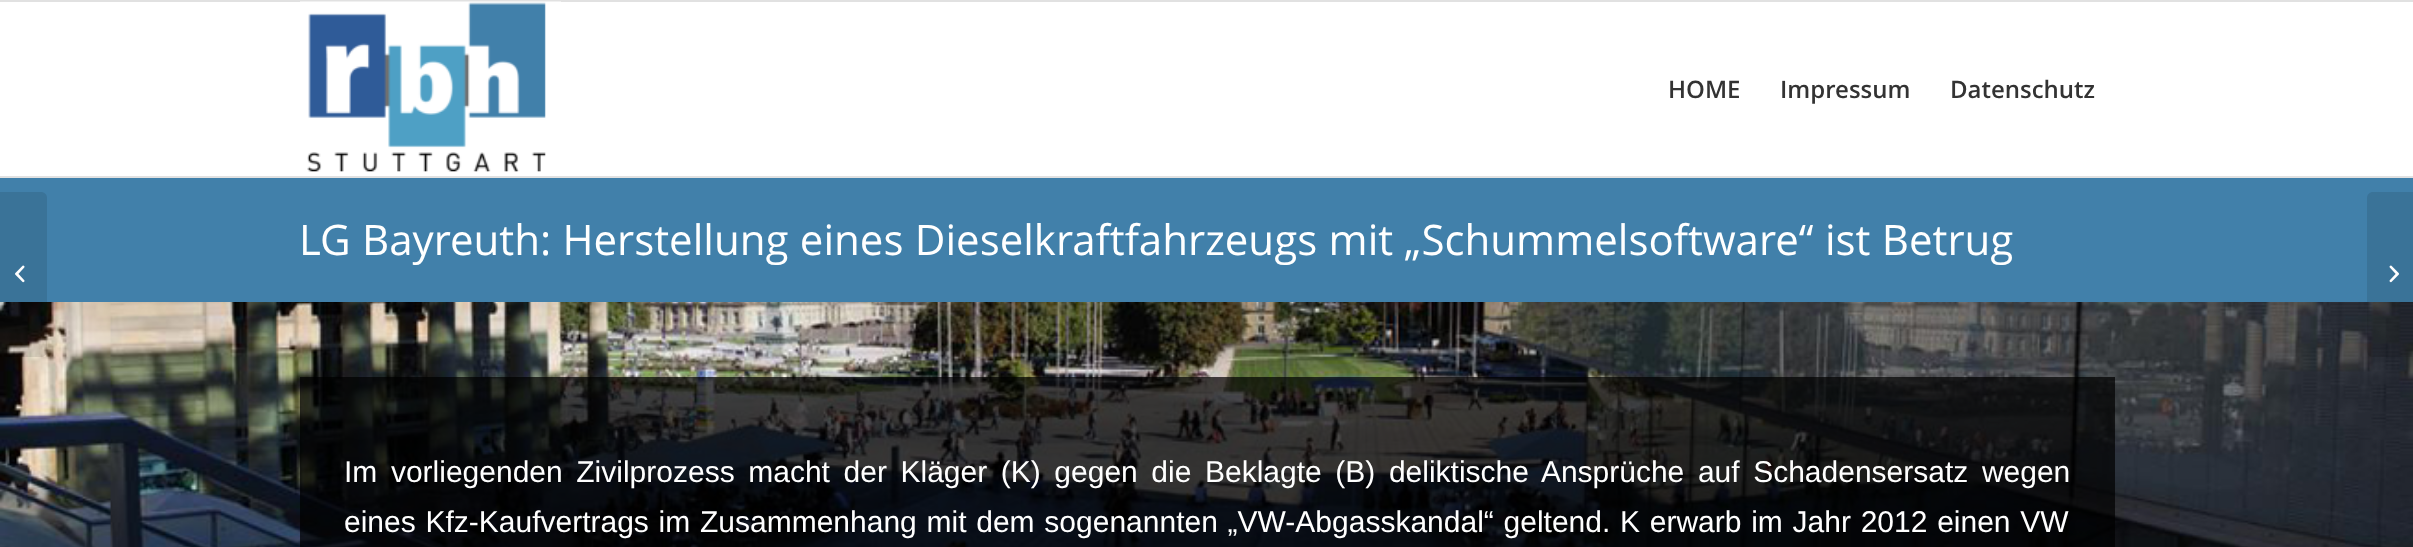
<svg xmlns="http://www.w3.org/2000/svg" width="2413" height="547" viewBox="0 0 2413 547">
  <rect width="100%" height="100%" fill="#fff"/>
  <path d="M0 0h2413v2H0z" fill="#e1e1e1"/>
  <path d="M0 176h2413v2H0z" fill="#e1e1e1"/>
  <image x="300" y="1" width="261" height="171" href="img/1.png"/>
  <path d="M0 178h2413v124H0z" fill="#4180aa"/>
  <image x="0" y="302" width="2413" height="245" href="img/3.png"/>
  <path d="M0 192H41C44.5 192 47 194.5 47 198V351C47 354.5 44.5 357 41 357H0Z" fill="#0000001a"/>
  <image x="15" y="265" width="10" height="18" href="img/2.png"/>
  <path d="M300 377h1815v170H300z" fill="#000000b3"/>
  <path d="M2373 192H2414V357H2373C2369.5 357 2367 354.5 2367 351V198C2367 194.5 2369.5 192 2373 192Z" fill="#0000001a"/>
  <image x="2389" y="265" width="10" height="18" href="img/4.png"/>
  <g font-family="Open Sans" font-size="24" font-weight="600" fill="#333">
    <text x="1668" y="98">HOME</text>
    <text x="1780" y="98">Impressum</text>
    <text x="1950" y="98">Datenschutz</text>
  </g>
  <text x="299" y="255" word-spacing="0.5" font-family="Open Sans" font-size="42" fill="#fff">LG Bayreuth: Herstellung eines Dieselkraftfahrzeugs mit „Schummelsoftware“ ist Betrug</text>
  <g font-family="Liberation Sans" font-size="30" fill="#fff">
    <text x="344" y="482" word-spacing="5.25">Im vorliegenden Zivilprozess macht der Kläger (K) gegen die Beklagte (B) deliktische Ansprüche auf Schadensersatz wegen</text>
    <text x="344" y="532" word-spacing="1.4">eines Kfz-Kaufvertrags im Zusammenhang mit dem sogenannten „VW-Abgasskandal“ geltend. K erwarb im Jahr 2012 einen VW</text>
  </g>
</svg>
